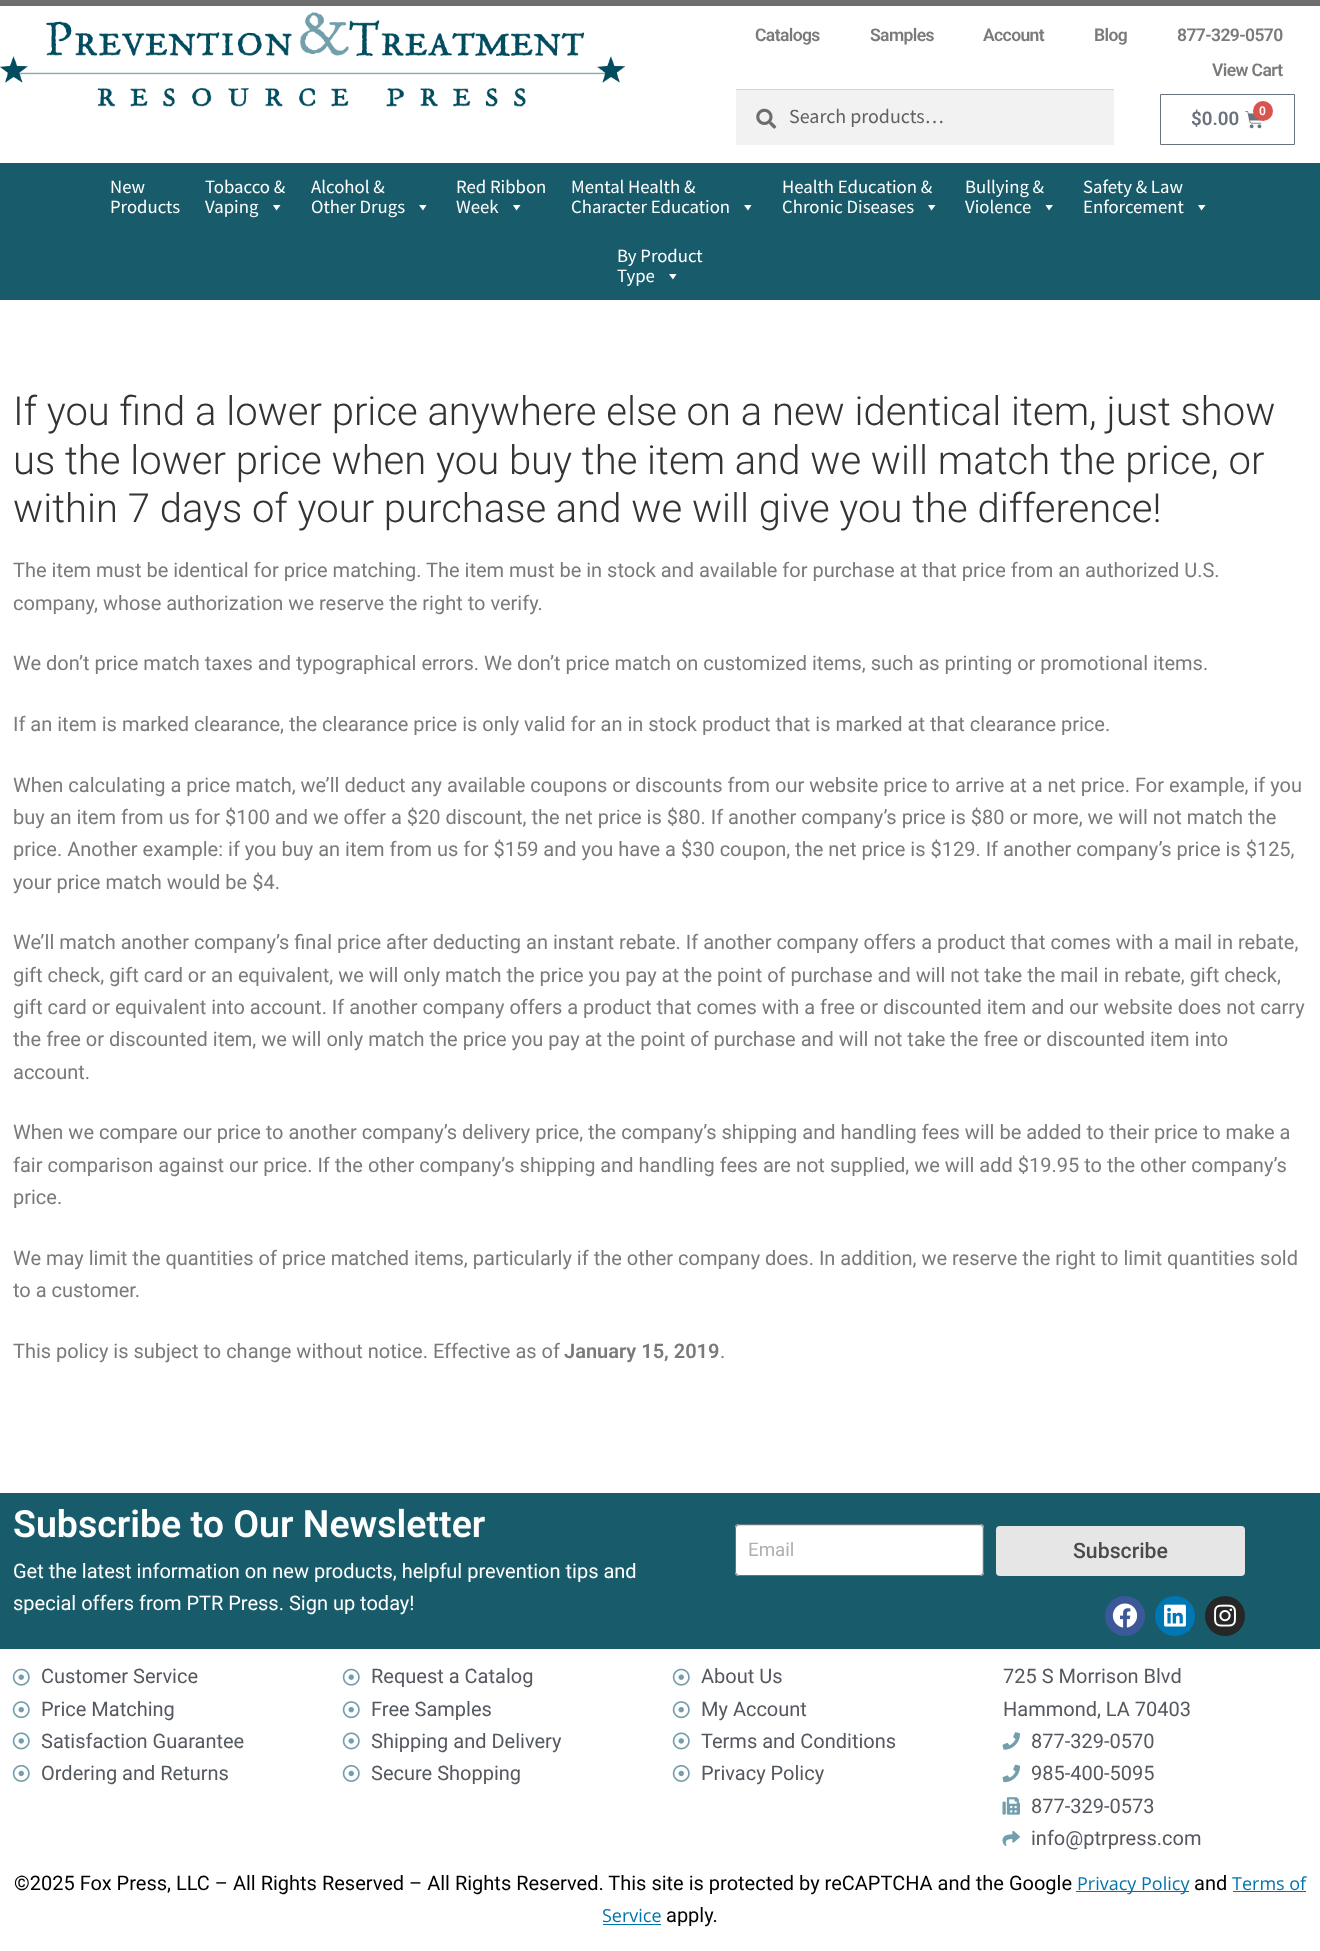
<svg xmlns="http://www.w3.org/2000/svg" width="1320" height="1951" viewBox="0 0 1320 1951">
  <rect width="100%" height="100%" fill="#fff"/>
  <path d="M0 0h1320v6H0z" fill="#6d6d6d"/>
  <image x="0" y="12" width="625" height="95" href="img/1.png"/>
  <path d="M736 90h378v55H736z" fill="#f2f2f2"/>
  <image x="756" y="108" width="21" height="21" href="img/2.png"/>
  <path d="M736 89h378v1H736z" fill="#d4d4d4"/>
  <path d="M1160.5 94.5h134v50H1160.5z" fill="none" stroke="#69727d"/>
  <image x="1245" y="111" width="17" height="18" href="img/3.png"/>
  <circle cx="1263" cy="111" r="10" fill="#d9534f"/>
  <path d="M0 163h1320v137H0z" fill="#185c6b"/>
  <path d="M280.5 205L276.5 210.5L273 205Z" fill="#fff"/>
  <path d="M426.5 205L423 210.5L419 205Z" fill="#fff"/>
  <path d="M520.5 205L516.5 210.5L513 205Z" fill="#fff"/>
  <path d="M751.5 205L748 210.5L744 205Z" fill="#fff"/>
  <path d="M935.5 205L931.5 210.5L928 205Z" fill="#fff"/>
  <path d="M1053 205L1049 210.5L1045.5 205Z" fill="#fff"/>
  <path d="M1205.5 205L1201.5 210.5L1198 205Z" fill="#fff"/>
  <path d="M676.5 274L673 279.5L669 274Z" fill="#fff"/>
  <path d="M0 1493h1320v156H0z" fill="#185c6b"/>
  <rect x="735" y="1524" width="249" height="52" rx="4" fill="#fff"/>
  <path d="M739 1526H980C981 1526 982 1527 982 1529V1575C983 1574 983 1573 983 1572V1528C983 1526 982 1525 980 1525H738C737 1525 736 1526 736 1528V1529C736 1527 737 1526 739 1526Z" fill="#dfdfdf"/>
  <rect x="735.5" y="1524.5" width="248" height="51" rx="3.5" fill="none" stroke="#69727d"/>
  <rect x="996" y="1526" width="249" height="50" rx="4" fill="#e6e6e6"/>
  <circle cx="1125" cy="1616" r="20" fill="#3b5998"/>
  <image x="1112" y="1603" width="26" height="25" href="img/4.png"/>
  <circle cx="1175" cy="1616" r="20" fill="#0077b5"/>
  <image x="1164" y="1604" width="22" height="23" href="img/5.png"/>
  <circle cx="1225" cy="1616" r="20" fill="#262626"/>
  <image x="1214" y="1604" width="22" height="23" href="img/6.png"/>
  <image x="12" y="1668" width="18" height="18" href="img/7.png"/>
  <image x="12" y="1701" width="18" height="18" href="img/8.png"/>
  <image x="12" y="1732" width="18" height="18" href="img/9.png"/>
  <image x="12" y="1765" width="18" height="17" href="img/10.png"/>
  <image x="342" y="1668" width="18" height="18" href="img/7.png"/>
  <image x="342" y="1701" width="18" height="18" href="img/8.png"/>
  <image x="342" y="1732" width="18" height="18" href="img/9.png"/>
  <image x="342" y="1765" width="18" height="17" href="img/10.png"/>
  <image x="672" y="1668" width="18" height="18" href="img/7.png"/>
  <image x="672" y="1701" width="18" height="18" href="img/8.png"/>
  <image x="672" y="1732" width="18" height="18" href="img/9.png"/>
  <image x="672" y="1765" width="18" height="17" href="img/10.png"/>
  <image x="1002" y="1732" width="18" height="18" href="img/11.png"/>
  <image x="1002" y="1764" width="18" height="19" href="img/12.png"/>
  <image x="1002" y="1797" width="18" height="18" href="img/13.png"/>
  <image x="1002" y="1830" width="18" height="16" href="img/14.png"/>
  <path d="M1076 1891h113v1H1076z" fill="#0073aa"/>
  <path d="M1233 1891h73v1H1233z" fill="#0073aa"/>
  <path d="M603 1924h58v1H603z" fill="#0073aa"/>
  <g font-family="Roboto" font-size="17.5" font-weight="600" letter-spacing="-0.6" fill="#7a7a7a">
    <text x="755" y="41">Catalogs</text>
    <text x="870" y="41">Samples</text>
    <text x="983" y="41">Account</text>
    <text x="1094" y="41">Blog</text>
    <text x="1177" y="41">877-329-0570</text>
    <text x="1212" y="76">View Cart</text>
  </g>
  <text x="789" y="123" font-family="Source Sans Pro" font-size="20" fill="#616161">Search products…</text>
  <text x="1191" y="125" font-family="Roboto" font-size="18.75" font-weight="600" fill="#69727d">$0.00</text>
  <text x="1259" y="115" font-family="Roboto" font-size="12" font-weight="600" fill="#fff">0</text>
  <g font-family="Source Sans Pro" font-size="18.75" fill="#fff">
    <text x="110" y="193">New</text>
    <text x="110" y="213">Products</text>
    <text x="205" y="193">Tobacco &amp;</text>
    <text x="205" y="213">Vaping</text>
    <text x="311" y="193">Alcohol &amp;</text>
    <text x="311" y="213">Other Drugs</text>
    <text x="456" y="193">Red Ribbon</text>
    <text x="456" y="213">Week</text>
    <text x="571" y="193">Mental Health &amp;</text>
    <text x="571" y="213">Character Education</text>
    <text x="782" y="193">Health Education &amp;</text>
    <text x="782" y="213">Chronic Diseases</text>
    <text x="965" y="193">Bullying &amp;</text>
    <text x="965" y="213">Violence</text>
    <text x="1083" y="193">Safety &amp; Law</text>
    <text x="1083" y="213">Enforcement</text>
    <text x="617" y="262">By Product</text>
    <text x="617" y="282">Type</text>
  </g>
  <g font-family="Roboto" font-size="40" font-weight="300" fill="#333">
    <text x="13" y="425">If you find a lower price anywhere else on a new identical item, just show</text>
    <text x="13" y="474">us the lower price when you buy the item and we will match the price, or</text>
    <text x="13" y="522">within 7 days of your purchase and we will give you the difference!</text>
  </g>
  <g font-family="Roboto" font-size="20" fill="#7a7a7a">
    <text x="13" y="577">The item must be identical for price matching. The item must be in stock and available for purchase at that price from an authorized U.S.</text>
    <text x="13" y="610">company, whose authorization we reserve the right to verify.</text>
    <text x="13" y="670">We don’t price match taxes and typographical errors. We don’t price match on customized items, such as printing or promotional items.</text>
    <text x="13" y="731">If an item is marked clearance, the clearance price is only valid for an in stock product that is marked at that clearance price.</text>
    <text x="13" y="792">When calculating a price match, we’ll deduct any available coupons or discounts from our website price to arrive at a net price. For example, if you</text>
    <text x="13" y="824">buy an item from us for $100 and we offer a $20 discount, the net price is $80. If another company’s price is $80 or more, we will not match the</text>
    <text x="13" y="856">price. Another example: if you buy an item from us for $159 and you have a $30 coupon, the net price is $129. If another company’s price is $125,</text>
    <text x="13" y="889">your price match would be $4.</text>
    <text x="13" y="949">We’ll match another company’s final price after deducting an instant rebate. If another company offers a product that comes with a mail in rebate,</text>
    <text x="13" y="982">gift check, gift card or an equivalent, we will only match the price you pay at the point of purchase and will not take the mail in rebate, gift check,</text>
    <text x="13" y="1014">gift card or equivalent into account. If another company offers a product that comes with a free or discounted item and our website does not carry</text>
    <text x="13" y="1046">the free or discounted item, we will only match the price you pay at the point of purchase and will not take the free or discounted item into</text>
    <text x="13" y="1079">account.</text>
    <text x="13" y="1139">When we compare our price to another company’s delivery price, the company’s shipping and handling fees will be added to their price to make a</text>
    <text x="13" y="1172">fair comparison against our price. If the other company’s shipping and handling fees are not supplied, we will add $19.95 to the other company’s</text>
    <text x="13" y="1204">price.</text>
    <text x="13" y="1265">We may limit the quantities of price matched items, particularly if the other company does. In addition, we reserve the right to limit quantities sold</text>
    <text x="13" y="1297">to a customer.</text>
    <text x="13" y="1358">This policy is subject to change without notice. Effective as of</text>
  </g>
  <text x="564" y="1358" font-family="Roboto" font-size="20" font-weight="600" fill="#7a7a7a">January 15, 2019</text>
  <text x="720" y="1358" font-family="Roboto" font-size="20" fill="#7a7a7a">.</text>
  <text x="13" y="1537" font-family="Roboto" font-size="37.5" font-weight="600" fill="#fff">Subscribe to Our Newsletter</text>
  <g font-family="Roboto" font-size="20" fill="#fff">
    <text x="13" y="1578">Get the latest information on new products, helpful prevention tips and</text>
    <text x="13" y="1610">special offers from PTR Press. Sign up today!</text>
  </g>
  <text x="748" y="1556" font-family="Roboto" font-size="18.75" fill="#afafaf">Email</text>
  <text x="1073" y="1558" font-family="Roboto" font-size="21.25" font-weight="500" fill="#4a4a4a">Subscribe</text>
  <g font-family="Roboto" font-size="20" fill="#54595f">
    <text x="41" y="1683">Customer Service</text>
    <text x="41" y="1716">Price Matching</text>
    <text x="41" y="1748">Satisfaction Guarantee</text>
    <text x="41" y="1780">Ordering and Returns</text>
    <text x="371" y="1683">Request a Catalog</text>
    <text x="371" y="1716">Free Samples</text>
    <text x="371" y="1748">Shipping and Delivery</text>
    <text x="371" y="1780">Secure Shopping</text>
    <text x="701" y="1683">About Us</text>
    <text x="701" y="1716">My Account</text>
    <text x="701" y="1748">Terms and Conditions</text>
    <text x="701" y="1780">Privacy Policy</text>
    <text x="1003" y="1683">725 S Morrison Blvd</text>
    <text x="1003" y="1716">Hammond, LA 70403</text>
    <text x="1031" y="1748">877-329-0570</text>
    <text x="1031" y="1780">985-400-5095</text>
    <text x="1031" y="1813">877-329-0573</text>
    <text x="1031" y="1845">info@ptrpress.com</text>
  </g>
  <text x="14" y="1890" font-family="Roboto" font-size="20" fill="#000">©2025 Fox Press, LLC – All Rights Reserved – All Rights Reserved. This site is protected by reCAPTCHA and the Google</text>
  <text x="1077" y="1890" font-family="Open Sans" font-size="18" fill="#0073aa">Privacy Policy</text>
  <text x="1194" y="1890" font-family="Roboto" font-size="20" fill="#000">and</text>
  <g font-family="Open Sans" font-size="18" fill="#0073aa">
    <text x="1232" y="1890">Terms of</text>
    <text x="602" y="1922">Service</text>
  </g>
  <text x="666" y="1922" font-family="Roboto" font-size="20" fill="#000">apply.</text>
</svg>
